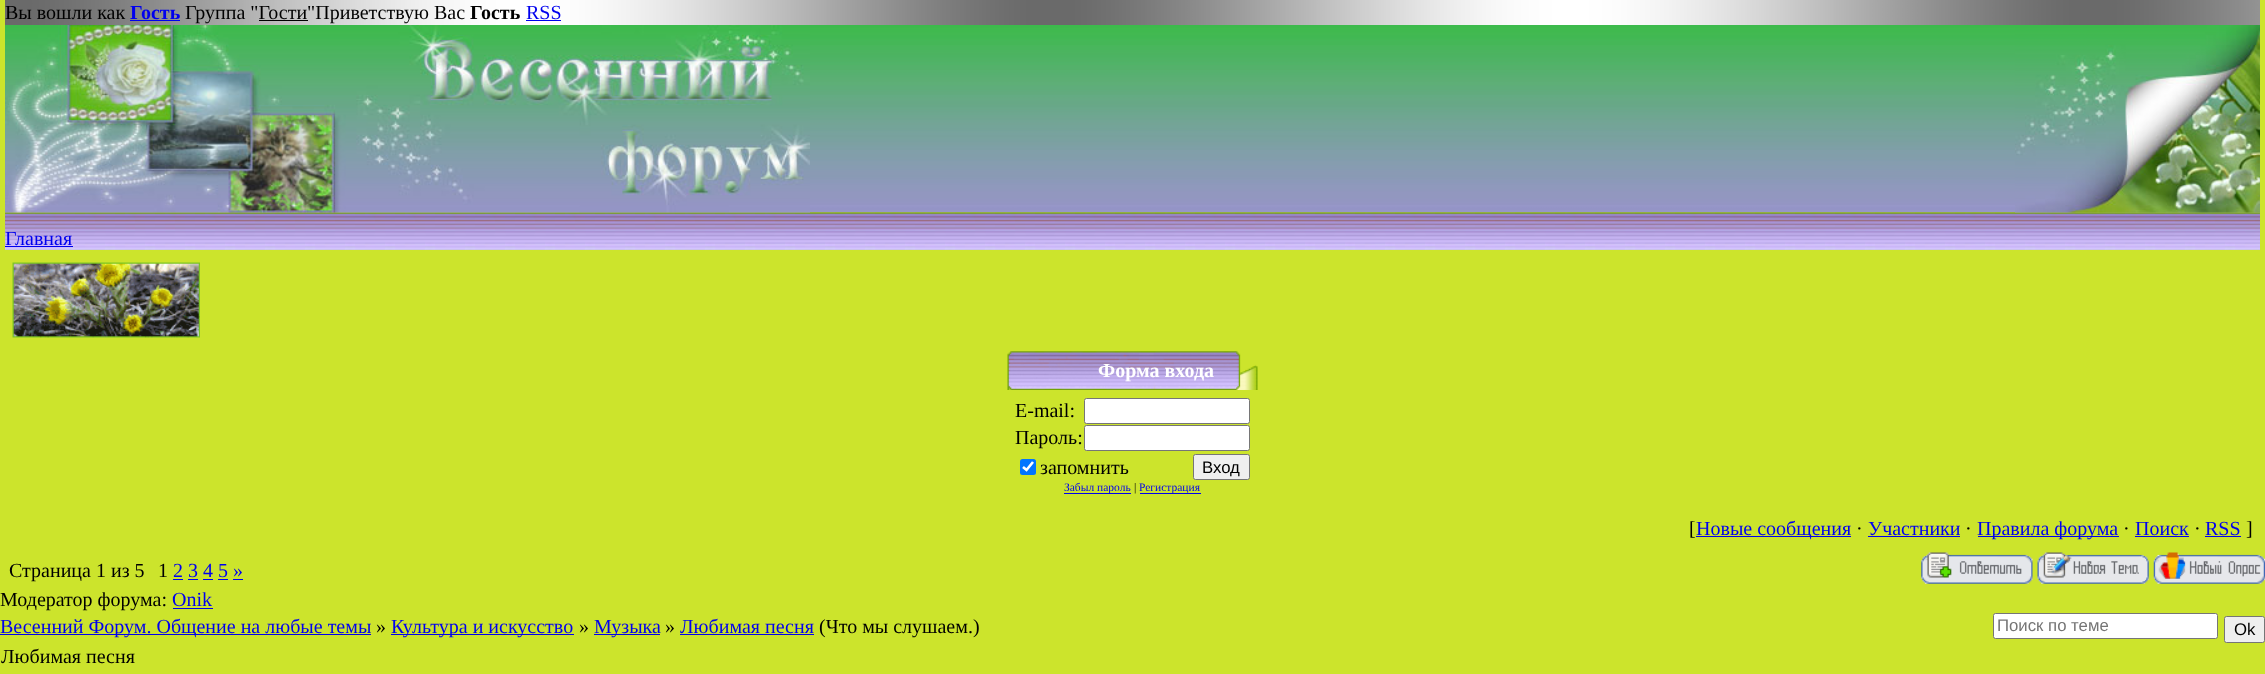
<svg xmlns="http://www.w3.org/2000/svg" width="2265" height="674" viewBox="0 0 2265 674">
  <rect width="100%" height="100%" fill="#cce42c"/>
  <image x="5" y="0" width="2255" height="25" href="img/1.png"/>
  <path d="M130 20h50v1H130z" fill="#00e"/>
  <path d="M526 20h35v1H526z" fill="#00e"/>
  <path d="M259 20h49v1H259z" fill="#000"/>
  <image x="5" y="25" width="2255" height="188" href="img/2.png"/>
  <image x="5" y="212" width="2255" height="38" href="img/5.png"/>
  <image x="5" y="25" width="805" height="188" href="img/3.png"/>
  <image x="2015" y="25" width="245" height="188" href="img/4.png"/>
  <path d="M5 246h68v1H5z" fill="#00e"/>
  <image x="12" y="262" width="188" height="76" href="img/6.png"/>
  <image x="1007" y="351" width="251" height="39" href="img/7.png"/>
  <rect x="1084.5" y="398.5" width="165" height="25" rx="2" fill="#fff" stroke="#767676"/>
  <rect x="1084.5" y="425.5" width="165" height="25" rx="2" fill="#fff" stroke="#767676"/>
  <rect x="1020" y="459" width="16" height="16" rx="2.5" fill="#0075ff"/>
  <path d="M1023 467L1026.5 470L1033 462" fill="none" stroke="#fff" stroke-width="2.6"/>
  <rect x="1193.5" y="454.5" width="56" height="25" rx="2" fill="#efefef" stroke="#767676"/>
  <path d="M1064 493h67v1H1064z" fill="#00e"/>
  <path d="M1140 493h61v1H1140z" fill="#00e"/>
  <path d="M1696 536h155v1H1696z" fill="#00e"/>
  <path d="M1868 536h92v1H1868z" fill="#00e"/>
  <path d="M1978 536h141v1H1978z" fill="#00e"/>
  <path d="M2135 536h54v1H2135z" fill="#00e"/>
  <path d="M2205 536h36v1H2205z" fill="#00e"/>
  <path d="M173 579h10v1H173z" fill="#00e"/>
  <path d="M188 579h10v1H188z" fill="#00e"/>
  <path d="M203 579h10v1H203z" fill="#00e"/>
  <path d="M218 579h10v1H218z" fill="#00e"/>
  <path d="M233 579h10v1H233z" fill="#00e"/>
  <image x="1921" y="552" width="112" height="32" href="img/8.png"/>
  <image x="2037" y="552" width="112" height="32" href="img/9.png"/>
  <image x="2153" y="552" width="112" height="32" href="img/10.png"/>
  <path d="M173 608h40v1H173z" fill="#00e"/>
  <path d="M0 634h371v1H0z" fill="#00e"/>
  <path d="M391 634h183v1H391z" fill="#00e"/>
  <path d="M594 634h66v1H594z" fill="#00e"/>
  <path d="M680 634h134v1H680z" fill="#00e"/>
  <rect x="1993.5" y="613.5" width="224" height="25" rx="2" fill="#fff" stroke="#767676"/>
  <rect x="2224.5" y="616.5" width="40" height="26" rx="2" fill="#efefef" stroke="#767676"/>
  <text x="5" y="19" font-family="Liberation Serif" font-size="20" fill="#000">Вы вошли как</text>
  <text x="130" y="19" font-family="Liberation Serif" font-size="20" font-weight="bold" fill="#00e">Гость</text>
  <text x="185" y="19" font-family="Liberation Serif" font-size="20" fill="#000">Группа "Гости"Приветствую Вас</text>
  <text x="470" y="19" font-family="Liberation Serif" font-size="20" font-weight="bold" fill="#000">Гость</text>
  <g font-family="Liberation Serif" font-size="20" fill="#00e">
    <text x="526" y="19">RSS</text>
    <text x="5" y="245">Главная</text>
  </g>
  <text x="1098" y="377" font-family="Liberation Serif" font-size="20" font-weight="bold" fill="#fff">Форма входа</text>
  <g font-family="Liberation Serif" font-size="20" fill="#000">
    <text x="1015" y="417">E-mail:</text>
    <text x="1015" y="444">Пароль:</text>
    <text x="1040" y="474">запомнить</text>
  </g>
  <text x="1202" y="473" font-family="Liberation Sans" font-size="16.75" fill="#000">Вход</text>
  <text x="1064" y="491" font-family="Liberation Serif" font-size="11.5" fill="#00e">Забыл пароль</text>
  <text x="1134" y="491" font-family="Liberation Serif" font-size="11.5" fill="#000">|</text>
  <text x="1139" y="491" font-family="Liberation Serif" font-size="11.5" fill="#00e">Регистрация</text>
  <text x="1689" y="535" font-family="Liberation Serif" font-size="20" fill="#000">[</text>
  <text x="1696" y="535" font-family="Liberation Serif" font-size="20" fill="#00e">Новые сообщения</text>
  <text x="1856" y="535" font-family="Liberation Serif" font-size="20" fill="#000">·</text>
  <text x="1868" y="535" font-family="Liberation Serif" font-size="20" fill="#00e">Участники</text>
  <text x="1965" y="535" font-family="Liberation Serif" font-size="20" fill="#000">·</text>
  <text x="1977" y="535" font-family="Liberation Serif" font-size="20" fill="#00e">Правила форума</text>
  <text x="2123" y="535" font-family="Liberation Serif" font-size="20" fill="#000">·</text>
  <text x="2135" y="535" font-family="Liberation Serif" font-size="20" fill="#00e">Поиск</text>
  <text x="2194" y="535" font-family="Liberation Serif" font-size="20" fill="#000">·</text>
  <text x="2205" y="535" font-family="Liberation Serif" font-size="20" fill="#00e">RSS</text>
  <g font-family="Liberation Serif" font-size="20" fill="#000">
    <text x="2246" y="535">]</text>
    <text x="9" y="577">Страница 1 из 5</text>
    <text x="158" y="577">1</text>
  </g>
  <text x="173" y="577" font-family="Liberation Serif" font-size="20" fill="#00e">2 3 4 5 »</text>
  <text x="0" y="606" font-family="Liberation Serif" font-size="20" fill="#000">Модератор форума:</text>
  <g font-family="Liberation Serif" font-size="20" fill="#00e">
    <text x="172" y="606">Onik</text>
    <text x="0" y="633">Весенний Форум. Общение на любые темы</text>
  </g>
  <text x="376" y="633" font-family="Liberation Serif" font-size="20" fill="#000">»</text>
  <text x="391" y="633" font-family="Liberation Serif" font-size="20" fill="#00e">Культура и искусство</text>
  <text x="579" y="633" font-family="Liberation Serif" font-size="20" fill="#000">»</text>
  <text x="594" y="633" font-family="Liberation Serif" font-size="20" fill="#00e">Музыка</text>
  <text x="665" y="633" font-family="Liberation Serif" font-size="20" fill="#000">»</text>
  <text x="680" y="633" font-family="Liberation Serif" font-size="20" fill="#00e">Любимая песня</text>
  <text x="819" y="633" font-family="Liberation Serif" font-size="20" fill="#000">(Что мы слушаем.)</text>
  <text x="1997" y="631" font-family="Liberation Sans" font-size="16.75" fill="#757575">Поиск по теме</text>
  <text x="2234" y="635" font-family="Liberation Sans" font-size="16.75" fill="#000">Ok</text>
  <text x="1" y="663" font-family="Liberation Serif" font-size="20" fill="#000">Любимая песня</text>
</svg>
